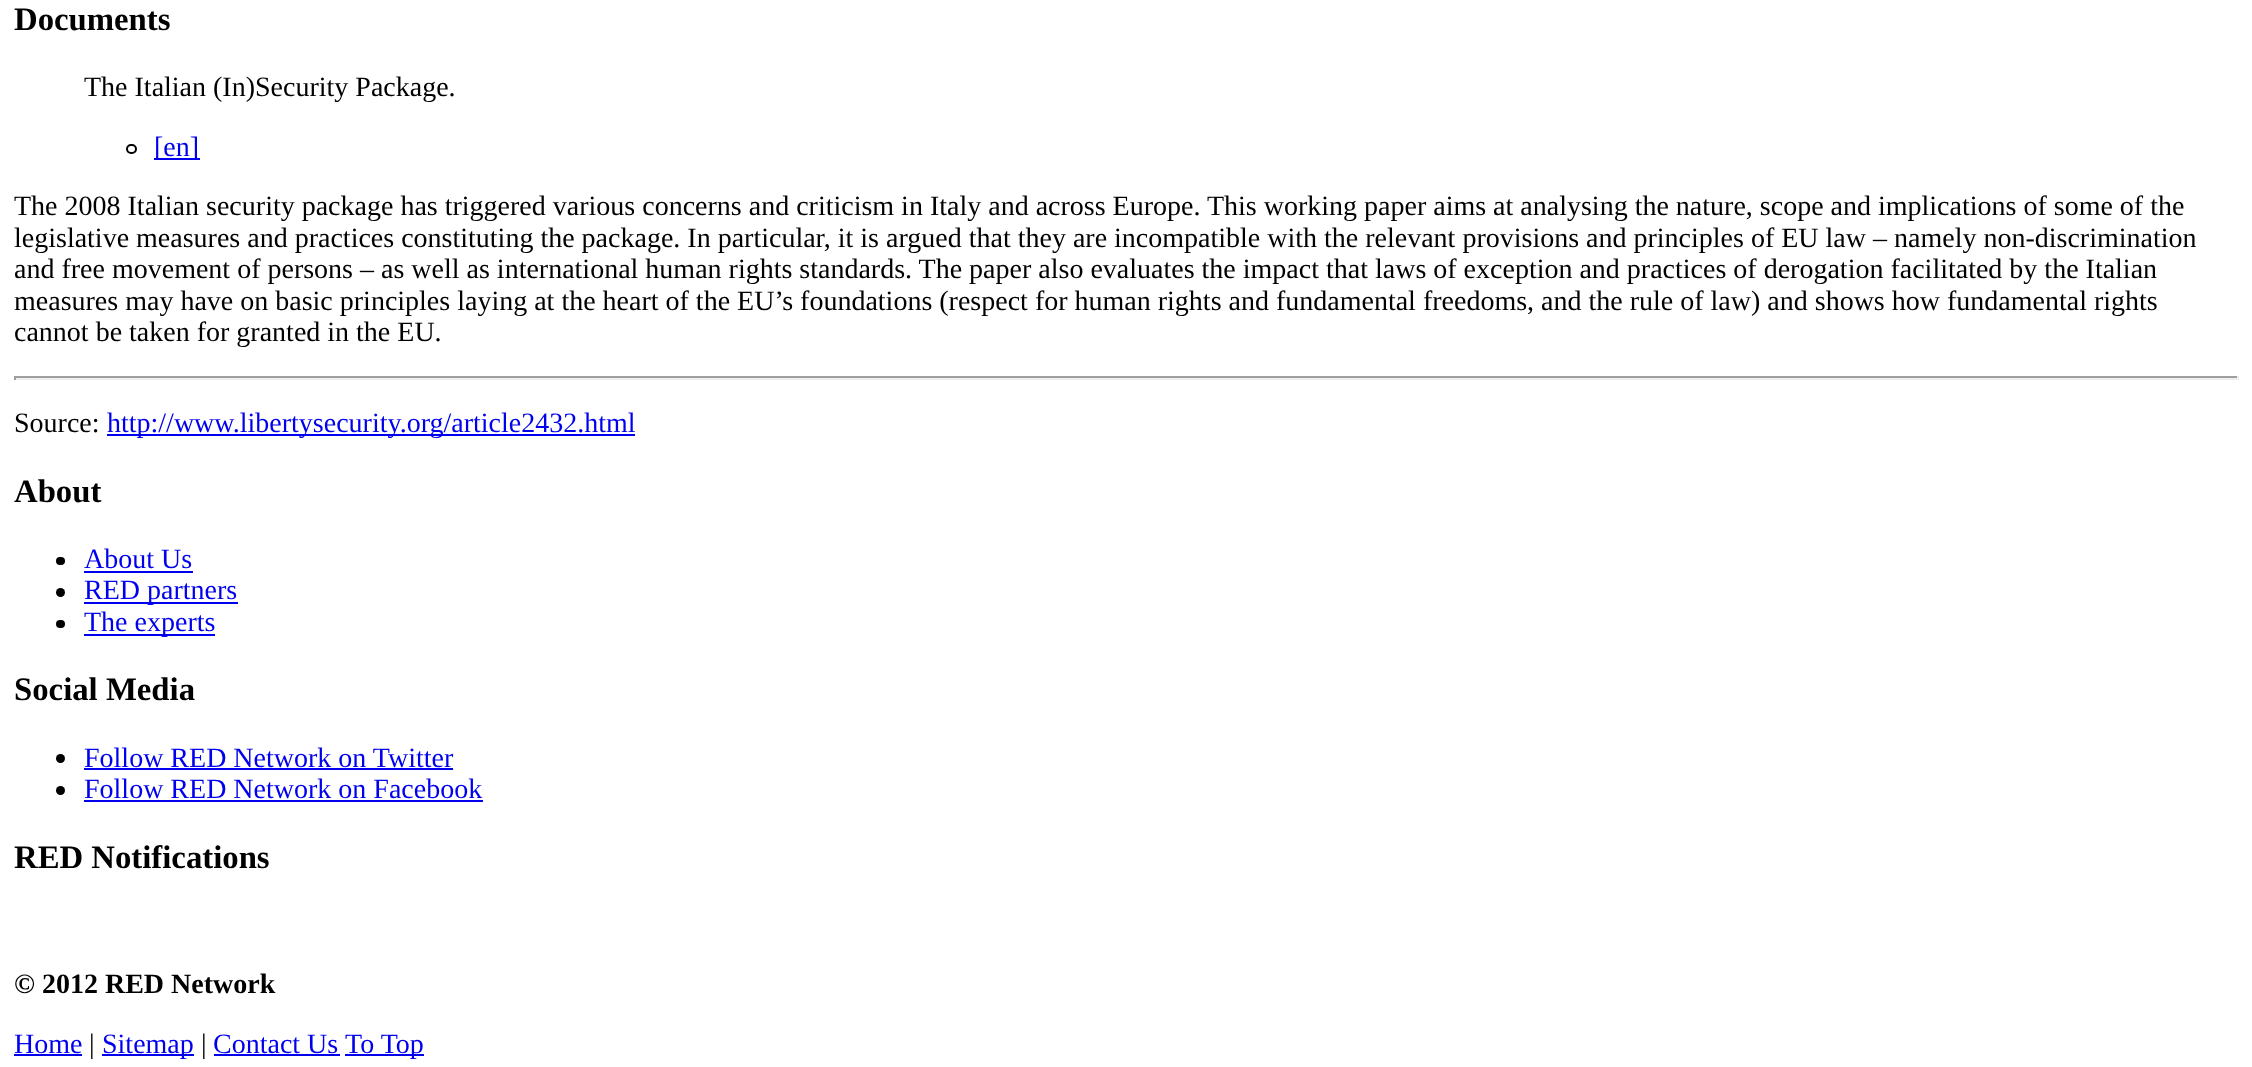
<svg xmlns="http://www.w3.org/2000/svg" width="2252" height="1067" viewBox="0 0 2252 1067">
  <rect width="100%" height="100%" fill="#fff"/>
  <rect x="127" y="145" width="9" height="8" rx="4" fill="none" stroke="#000" stroke-width="2"/>
  <path d="M154 158h46v2H154z" fill="#00e"/>
  <path d="M14 376h2224v2H14z" fill="#9f9f9f"/>
  <path d="M2237 376h2v4H2237z" fill="#eee"/>
  <path d="M14 378h2224v2H14z" fill="#eee"/>
  <path d="M14 376h2v4H14z" fill="#9f9f9f"/>
  <path d="M107 434h528v2H107z" fill="#00e"/>
  <rect x="56" y="557" width="9" height="8" rx="4" fill="#000"/>
  <path d="M84 571h109v2H84z" fill="#00e"/>
  <circle cx="60.5" cy="592.5" r="4.5" fill="#000"/>
  <path d="M84 602h154v2H84z" fill="#00e"/>
  <rect x="56" y="620" width="9" height="8" rx="4" fill="#000"/>
  <path d="M84 634h131v2H84z" fill="#00e"/>
  <circle cx="60.5" cy="758.5" r="4.5" fill="#000"/>
  <path d="M84 768h369v2H84z" fill="#00e"/>
  <circle cx="60.5" cy="790.5" r="4.5" fill="#000"/>
  <path d="M84 800h399v2H84z" fill="#00e"/>
  <path d="M14 1054h68v2H14z" fill="#00e"/>
  <path d="M102 1054h92v2H102z" fill="#00e"/>
  <path d="M214 1054h126v2H214z" fill="#00e"/>
  <path d="M345 1054h79v2H345z" fill="#00e"/>
  <text x="14" y="30" font-family="Liberation Serif" font-size="32.75" font-weight="bold" fill="#000">Documents</text>
  <text x="84" y="96" font-family="Liberation Serif" font-size="28" fill="#000">The Italian (In)Security Package.</text>
  <text x="154" y="156" font-family="Liberation Serif" font-size="28" fill="#00e">[en]</text>
  <g font-family="Liberation Serif" font-size="28" fill="#000">
    <text x="14" y="215">The 2008 Italian security package has triggered various concerns and criticism in Italy and across Europe. This working paper aims at analysing the nature, scope and implications of some of the</text>
    <text x="14" y="247">legislative measures and practices constituting the package. In particular, it is argued that they are incompatible with the relevant provisions and principles of EU law – namely non-discrimination</text>
    <text x="14" y="278">and free movement of persons – as well as international human rights standards. The paper also evaluates the impact that laws of exception and practices of derogation facilitated by the Italian</text>
    <text x="14" y="310">measures may have on basic principles laying at the heart of the EU’s foundations (respect for human rights and fundamental freedoms, and the rule of law) and shows how fundamental rights</text>
    <text x="14" y="341">cannot be taken for granted in the EU.</text>
    <text x="14" y="432">Source:</text>
  </g>
  <text x="107" y="432" font-family="Liberation Serif" font-size="28" fill="#00e">http://www.libertysecurity.org/article2432.html</text>
  <text x="14" y="502" font-family="Liberation Serif" font-size="32.75" font-weight="bold" fill="#000">About</text>
  <g font-family="Liberation Serif" font-size="28" fill="#00e">
    <text x="84" y="568">About Us</text>
    <text x="84" y="599">RED partners</text>
    <text x="84" y="631">The experts</text>
  </g>
  <text x="14" y="700" font-family="Liberation Serif" font-size="32.75" font-weight="bold" fill="#000">Social Media</text>
  <g font-family="Liberation Serif" font-size="28" fill="#00e">
    <text x="84" y="767">Follow RED Network on Twitter</text>
    <text x="84" y="798">Follow RED Network on Facebook</text>
  </g>
  <text x="14" y="868" font-family="Liberation Serif" font-size="32.75" font-weight="bold" fill="#000">RED Notifications</text>
  <text x="14" y="993" font-family="Liberation Serif" font-size="28" font-weight="bold" fill="#000">© 2012 RED Network</text>
  <text x="14" y="1053" font-family="Liberation Serif" font-size="28" fill="#00e">Home</text>
  <text x="89" y="1053" font-family="Liberation Serif" font-size="28" fill="#000">|</text>
  <text x="102" y="1053" font-family="Liberation Serif" font-size="28" fill="#00e">Sitemap</text>
  <text x="201" y="1053" font-family="Liberation Serif" font-size="28" fill="#000">|</text>
  <g font-family="Liberation Serif" font-size="28" fill="#00e">
    <text x="213" y="1053">Contact Us</text>
    <text x="345" y="1053">To Top</text>
  </g>
</svg>
